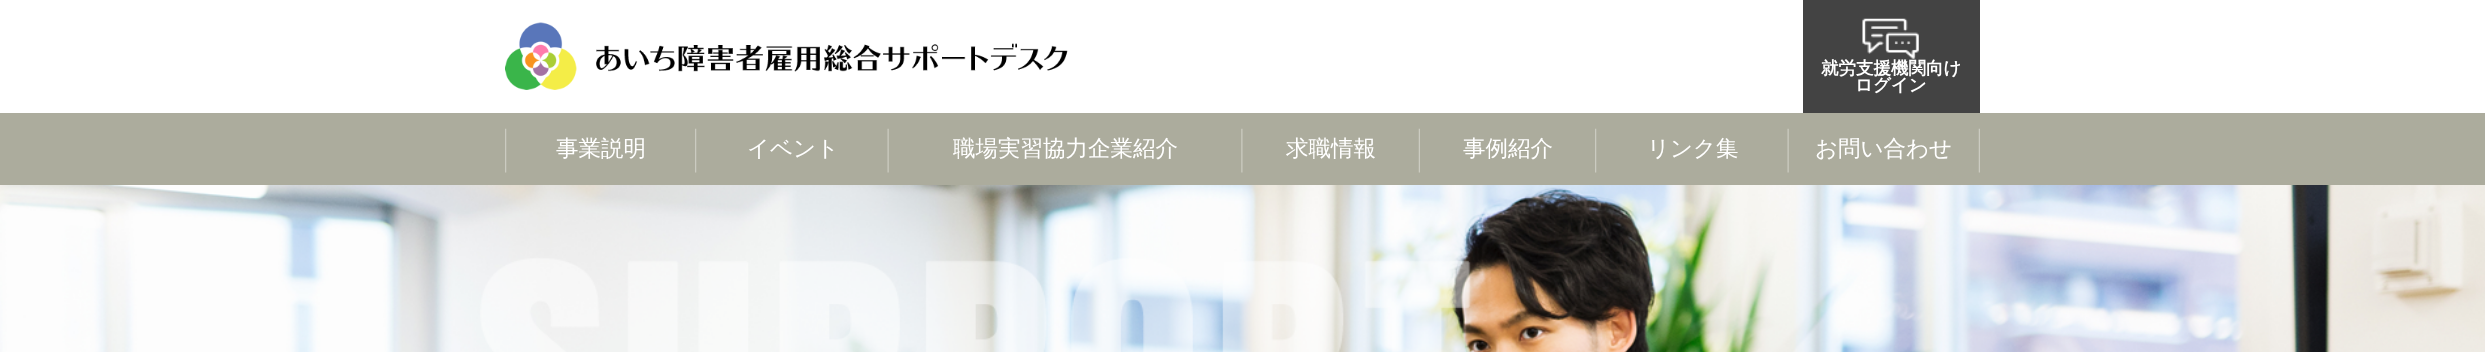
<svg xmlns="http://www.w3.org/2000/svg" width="2485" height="352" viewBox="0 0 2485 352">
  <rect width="100%" height="100%" fill="#fff"/>
  <image x="505" y="22" width="563" height="68" href="img/1.png"/>
  <path d="M1803 0h177v113H1803z" fill="#434343"/>
  <image x="1862" y="18" width="57" height="41" href="img/2.png"/>
  <path d="M0 113h2485v72H0z" fill="#acac9d"/>
  <image x="505" y="128" width="2" height="45" href="img/3.png"/>
  <image x="695" y="128" width="2" height="45" href="img/3.png"/>
  <image x="887" y="128" width="2" height="45" href="img/4.png"/>
  <image x="1241" y="128" width="2" height="45" href="img/5.png"/>
  <image x="1418" y="128" width="2" height="45" href="img/6.png"/>
  <image x="1595" y="128" width="2" height="45" href="img/3.png"/>
  <image x="1787" y="128" width="2" height="45" href="img/4.png"/>
  <image x="1978" y="128" width="2" height="45" href="img/6.png"/>
  <image x="0" y="185" width="2485" height="167" href="img/7.png"/>
  <g font-family="WenQuanYi Zen Hei" font-size="17.5" font-weight="bold" fill="#fff">
    <text x="1821" y="74">就労支援機関向け</text>
    <text x="1855" y="91">ログイン</text>
  </g>
  <g font-family="WenQuanYi Zen Hei" font-size="22.5" font-weight="500" fill="#fff">
    <text x="556" y="156">事業説明</text>
    <text x="747" y="156">イベント</text>
    <text x="953" y="156">職場実習協力企業紹介</text>
    <text x="1286" y="156">求職情報</text>
    <text x="1463" y="156">事例紹介</text>
    <text x="1647" y="156">リンク集</text>
    <text x="1815" y="156">お問い合わせ</text>
  </g>
</svg>
